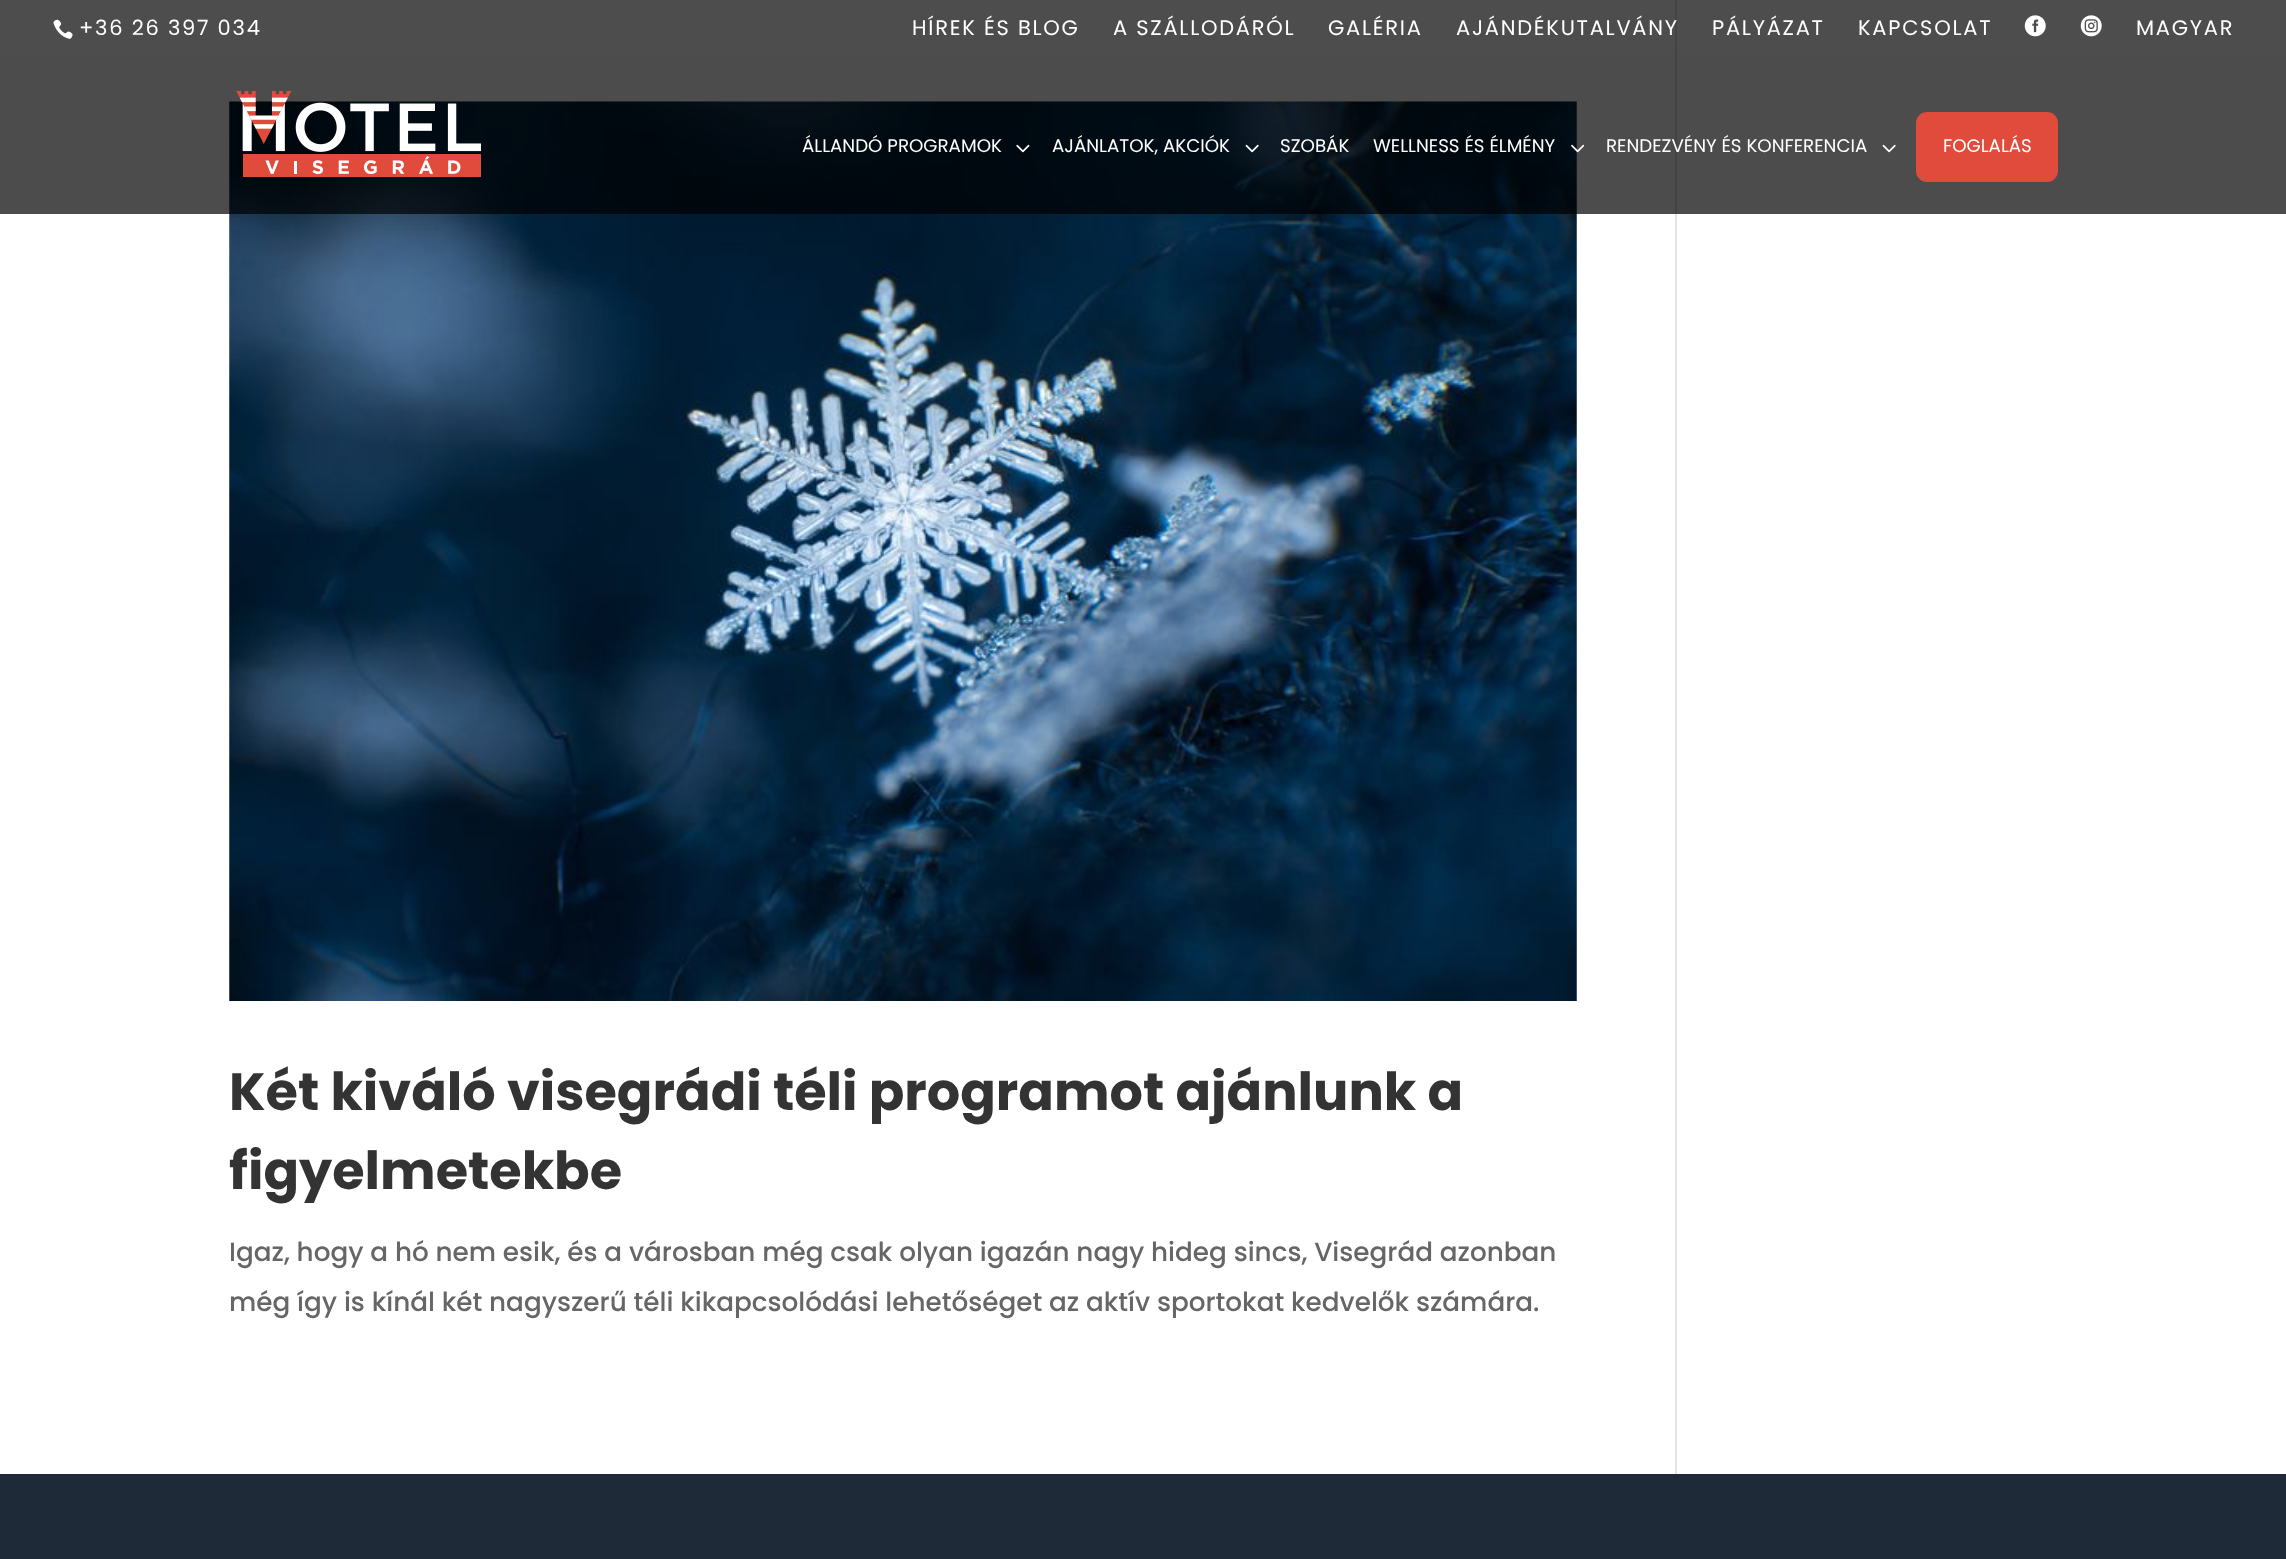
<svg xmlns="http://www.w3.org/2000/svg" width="2286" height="1559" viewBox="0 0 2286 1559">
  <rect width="100%" height="100%" fill="#fff"/>
  <path d="M0 0h2286v54H0z" fill="#4d4d4d"/>
  <image x="53" y="19" width="20" height="20" href="img/1.png"/>
  <image x="2024" y="15" width="22" height="22" href="img/2.png"/>
  <image x="2080" y="15" width="22" height="22" href="img/3.png"/>
  <image x="229" y="101" width="1348" height="900" href="img/9.png"/>
  <path d="M1675 54h2v1420H1675z" fill="#e2e2e2"/>
  <path d="M0 54h2286v160H0z" fill="#000000b3"/>
  <image x="236" y="91" width="245" height="86" href="img/4.png"/>
  <image x="1016" y="144" width="14" height="9" href="img/5.png"/>
  <image x="1245" y="144" width="14" height="9" href="img/6.png"/>
  <image x="1571" y="144" width="14" height="9" href="img/7.png"/>
  <image x="1882" y="144" width="14" height="9" href="img/8.png"/>
  <rect x="1916" y="112" width="142" height="70" rx="11" fill="#e14b3b"/>
  <path d="M1675 0h2v54H1675z" fill="#444"/>
  <path d="M0 1474h2286v85H0z" fill="#1e2a38"/>
  <g font-family="Poppins" font-size="21" letter-spacing="1.75" fill="#fff">
    <text x="79" y="35">+36 26 397 034</text>
    <text x="912" y="35">HÍREK ÉS BLOG</text>
    <text x="1113" y="35">A SZÁLLODÁRÓL</text>
    <text x="1328" y="35">GALÉRIA</text>
    <text x="1456" y="35">AJÁNDÉKUTALVÁNY</text>
    <text x="1712" y="35">PÁLYÁZAT</text>
    <text x="1858" y="35">KAPCSOLAT</text>
    <text x="2136" y="35">MAGYAR</text>
  </g>
  <g font-family="Poppins" font-size="18.25" fill="#fff">
    <text x="802" y="152">ÁLLANDÓ PROGRAMOK</text>
    <text x="1052" y="152">AJÁNLATOK, AKCIÓK</text>
    <text x="1280" y="152">SZOBÁK</text>
    <text x="1373" y="152">WELLNESS ÉS ÉLMÉNY</text>
    <text x="1606" y="152">RENDEZVÉNY ÉS KONFERENCIA</text>
    <text x="1943" y="152">FOGLALÁS</text>
  </g>
  <g font-family="Poppins" font-size="52.5" font-weight="bold" fill="#333">
    <text x="229" y="1110">Két kiváló visegrádi téli programot ajánlunk a</text>
    <text x="229" y="1189">figyelmetekbe</text>
  </g>
  <g font-family="Poppins" font-size="26.25" font-weight="500" fill="#666">
    <text x="229" y="1261">Igaz, hogy a hó nem esik, és a városban még csak olyan igazán nagy hideg sincs, Visegrád azonban</text>
    <text x="229" y="1311">még így is kínál két nagyszerű téli kikapcsolódási lehetőséget az aktív sportokat kedvelők számára.</text>
  </g>
</svg>
